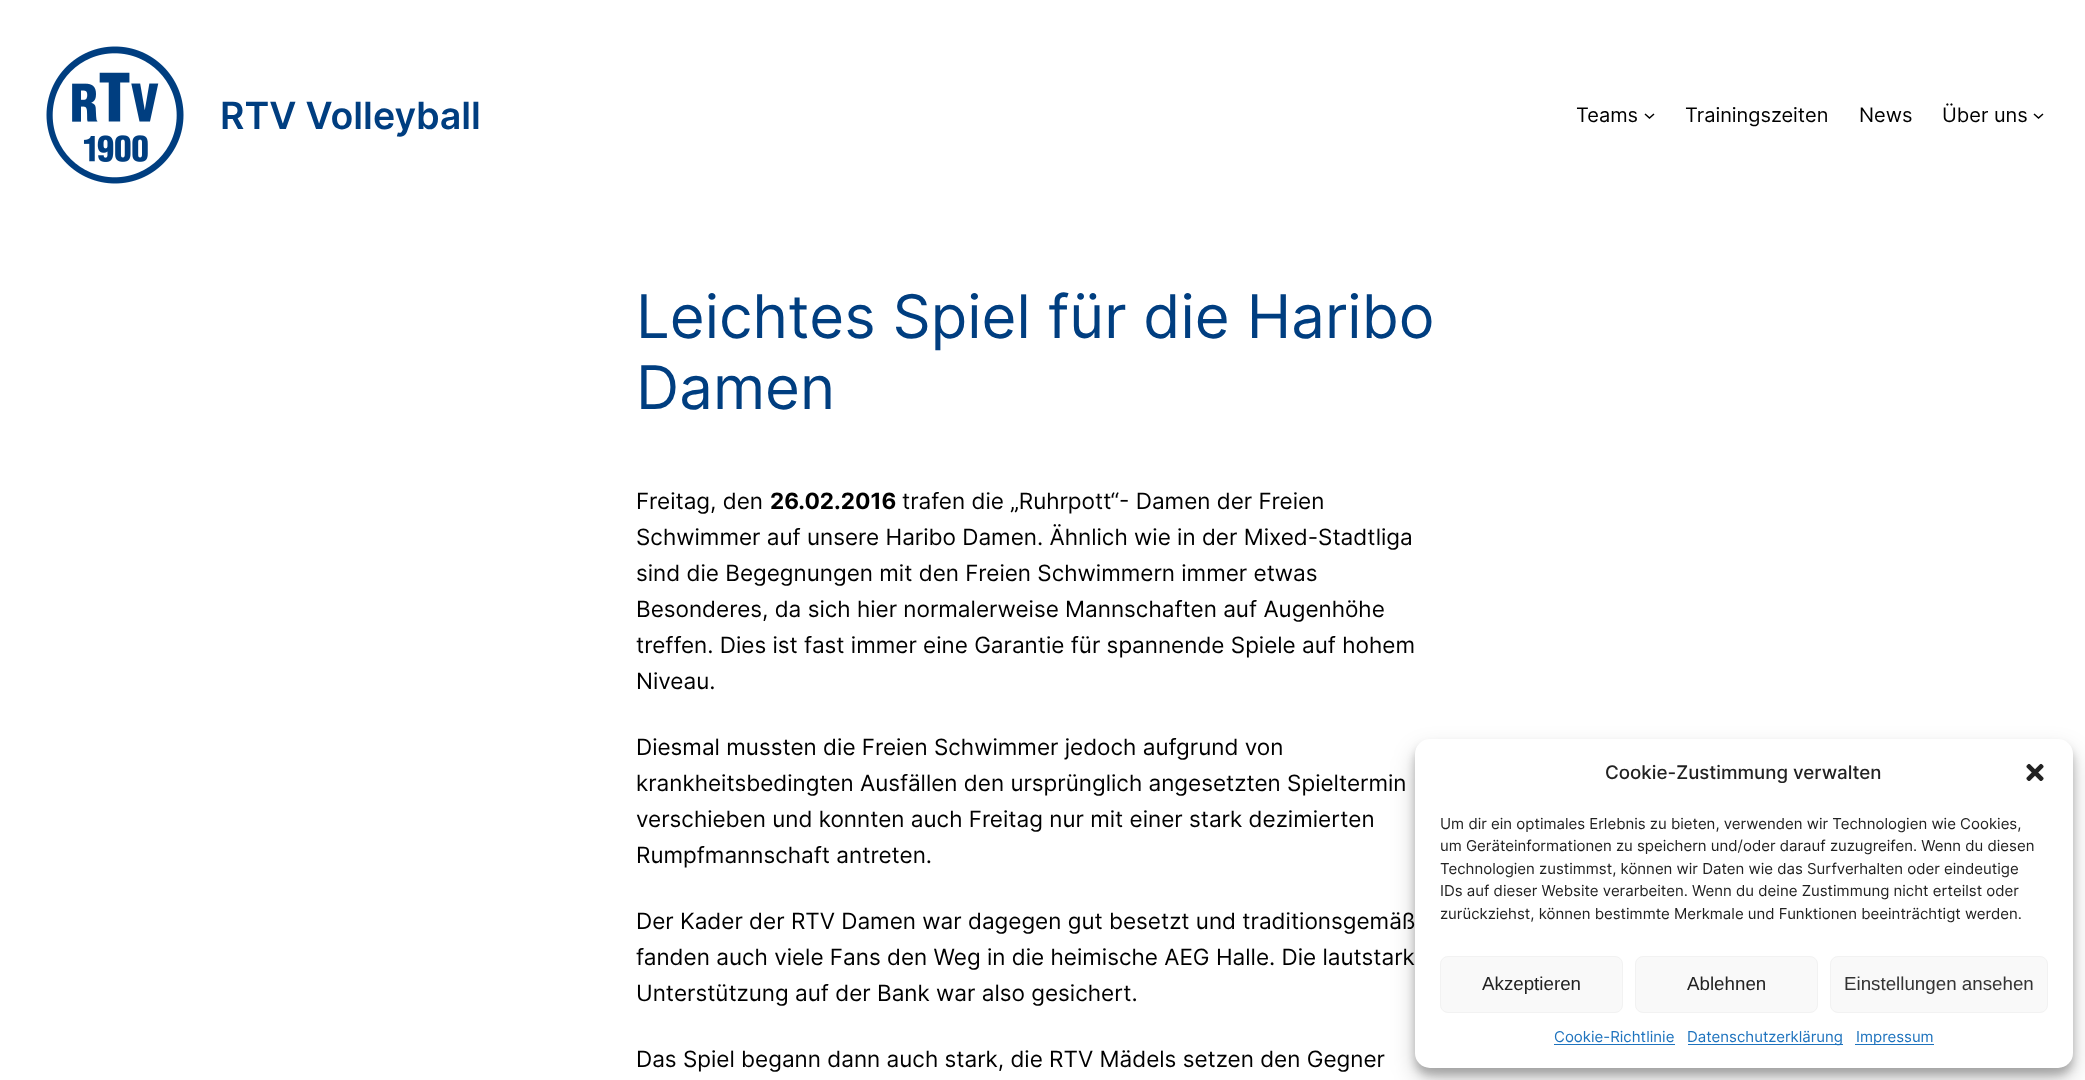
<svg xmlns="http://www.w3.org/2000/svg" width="2085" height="1080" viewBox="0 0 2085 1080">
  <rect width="100%" height="100%" fill="#fff"/>
  <image x="46" y="46" width="138" height="138" href="img/1.png"/>
  <path d="M1645 114L1649.5 118L1654 114" fill="none" stroke="#000" stroke-width="1.5"/>
  <path d="M2034 114L2038.5 118L2043 114" fill="none" stroke="#000" stroke-width="1.5"/>
  <rect x="1415" y="746" width="658" height="329" rx="15" fill="#0000003b" filter="blur(4px)"/>
  <rect x="1415" y="751" width="658" height="329" rx="15" fill="#00000030" filter="blur(12.5px)"/>
  <rect x="1415" y="739" width="658" height="329" rx="15" fill="#fff"/>
  <image x="2026" y="763" width="18" height="18" href="img/2.png"/>
  <rect x="1440.5" y="956.5" width="182" height="56" rx="7.5" fill="#f9f9f9" stroke="#f2f2f2"/>
  <rect x="1635.5" y="956.5" width="182" height="56" rx="7.5" fill="#f9f9f9" stroke="#f2f2f2"/>
  <rect x="1830.5" y="956.5" width="217" height="56" rx="7.5" fill="#f9f9f9" stroke="#f2f2f2"/>
  <path d="M1554 1044h121v1H1554z" fill="#1e73be"/>
  <path d="M1688 1044h155v1H1688z" fill="#1e73be"/>
  <path d="M1855 1044h79v1H1855z" fill="#1e73be"/>
  <text x="220" y="129" font-family="Inter" font-size="37.5" font-weight="600" fill="#003e80">RTV Volleyball</text>
  <g font-family="Inter" font-size="20" fill="#000">
    <text x="1576" y="122">Teams</text>
    <text x="1685" y="122">Trainingszeiten</text>
    <text x="1859" y="122">News</text>
    <text x="1942" y="122">Über uns</text>
  </g>
  <g font-family="Inter" font-size="60" fill="#003e80">
    <text x="636" y="338">Leichtes Spiel für die Haribo</text>
    <text x="636" y="409">Damen</text>
  </g>
  <text x="636" y="509" font-family="Inter" font-size="22.5" fill="#000">Freitag, den</text>
  <text x="770" y="509" font-family="Inter" font-size="22.5" font-weight="bold" fill="#000">26.02.2016</text>
  <g font-family="Inter" font-size="22.5" fill="#000">
    <text x="902" y="509">trafen die „Ruhrpott“- Damen der Freien</text>
    <text x="636" y="545">Schwimmer auf unsere Haribo Damen. Ähnlich wie in der Mixed-Stadtliga</text>
    <text x="636" y="581">sind die Begegnungen mit den Freien Schwimmern immer etwas</text>
    <text x="636" y="617">Besonderes, da sich hier normalerweise Mannschaften auf Augenhöhe</text>
    <text x="636" y="653">treffen. Dies ist fast immer eine Garantie für spannende Spiele auf hohem</text>
    <text x="636" y="689">Niveau.</text>
    <text x="636" y="755">Diesmal mussten die Freien Schwimmer jedoch aufgrund von</text>
    <text x="636" y="791">krankheitsbedingten Ausfällen den ursprünglich angesetzten Spieltermin</text>
    <text x="636" y="827">verschieben und konnten auch Freitag nur mit einer stark dezimierten</text>
    <text x="636" y="863">Rumpfmannschaft antreten.</text>
    <text x="636" y="929">Der Kader der RTV Damen war dagegen gut besetzt und traditionsgemäß</text>
    <text x="636" y="965">fanden auch viele Fans den Weg in die heimische AEG Halle. Die lautstark</text>
    <text x="636" y="1001">Unterstützung auf der Bank war also gesichert.</text>
    <text x="636" y="1067">Das Spiel begann dann auch stark, die RTV Mädels setzen den Gegner</text>
  </g>
  <text x="1605" y="779" font-family="Inter" font-size="18.75" font-weight="500" fill="#222">Cookie-Zustimmung verwalten</text>
  <g font-family="Inter" font-size="15" fill="#222">
    <text x="1440" y="829">Um dir ein optimales Erlebnis zu bieten, verwenden wir Technologien wie Cookies,</text>
    <text x="1440" y="851">um Geräteinformationen zu speichern und/oder darauf zuzugreifen. Wenn du diesen</text>
    <text x="1440" y="874">Technologien zustimmst, können wir Daten wie das Surfverhalten oder eindeutige</text>
    <text x="1440" y="896">IDs auf dieser Website verarbeiten. Wenn du deine Zustimmung nicht erteilst oder</text>
    <text x="1440" y="919">zurückziehst, können bestimmte Merkmale und Funktionen beeinträchtigt werden.</text>
  </g>
  <g font-family="Liberation Sans" font-size="18.75" fill="#222">
    <text x="1482" y="990">Akzeptieren</text>
    <text x="1687" y="990">Ablehnen</text>
  </g>
  <text x="1844" y="990" font-family="Liberation Sans" font-size="18.75" fill="#333">Einstellungen ansehen</text>
  <g font-family="Inter" font-size="15" fill="#1e73be">
    <text x="1554" y="1042">Cookie-Richtlinie</text>
    <text x="1687" y="1042">Datenschutzerklärung</text>
    <text x="1856" y="1042">Impressum</text>
  </g>
</svg>
